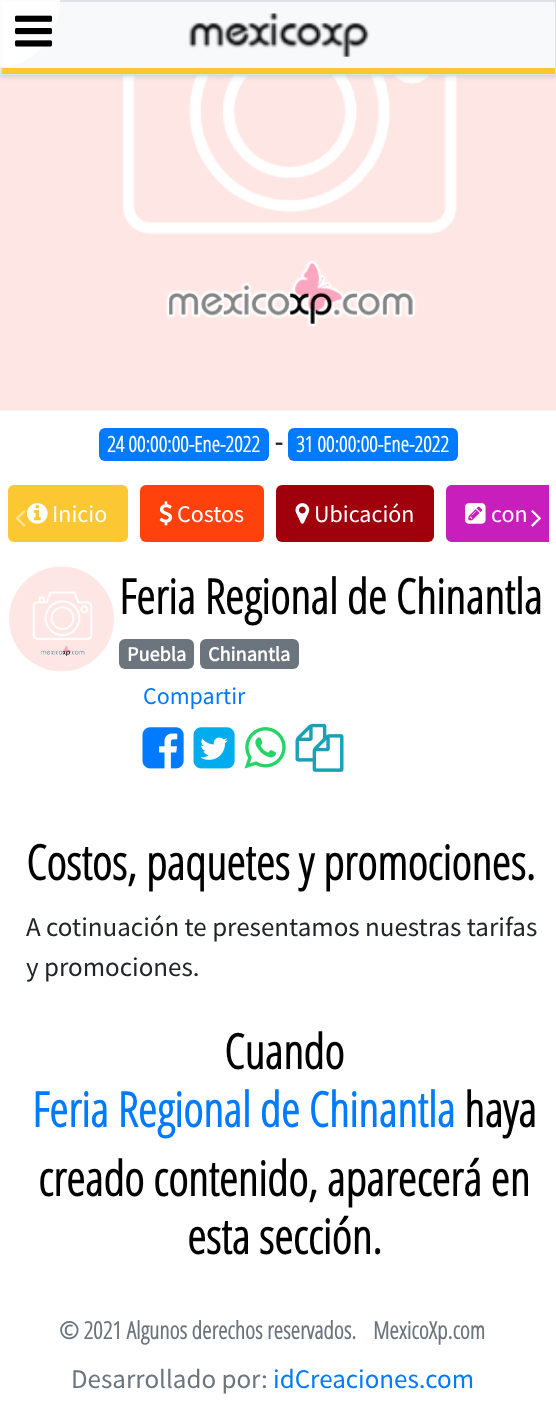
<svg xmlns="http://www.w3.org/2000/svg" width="556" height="1422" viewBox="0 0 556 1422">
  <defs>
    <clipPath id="clip1"><path d="M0 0h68v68H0z"/></clipPath>
    <clipPath id="clip2"><path d="M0 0H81V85H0ZM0 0H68V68H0Z" clip-rule="evenodd"/></clipPath>
  </defs>
  <rect width="100%" height="100%" fill="#fff"/>
  <image x="0" y="75" width="556" height="336" href="img/3.png"/>
  <path d="M0 0h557v75H0z" fill="#bbb" filter="blur(3px)"/>
  <path d="M2 2h553v66H2z" fill="#f8f9fa"/>
  <path d="M1 1h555v73H1z" fill="none" stroke="#dee2e6" stroke-width="2"/>
  <rect x="-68" y="-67" width="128" height="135" rx="67.5" fill="#ffffffe6"/>
  <path d="M2 68h553v6H2z" fill="#fbc733"/>
  <g clip-path="url(#clip1)">
    <g clip-path="url(#clip2)">
      <path d="M0 5h68v67H0z" fill="#00000080" filter="blur(4px)"/>
    </g>
  </g>
  <image x="15" y="15" width="38" height="32" href="img/1.png"/>
  <image x="188" y="13" width="182" height="44" href="img/2.png"/>
  <rect x="99" y="428" width="170" height="33" rx="6" fill="#007bff"/>
  <rect x="288" y="428" width="170" height="33" rx="6" fill="#007bff"/>
  <rect x="8" y="485" width="120" height="57" rx="6" fill="#fbc733"/>
  <image x="27" y="503" width="21" height="21" href="img/4.png"/>
  <rect x="140" y="485" width="124" height="57" rx="6" fill="#ff420b"/>
  <image x="159" y="501" width="14" height="25" href="img/5.png"/>
  <rect x="276" y="485" width="158" height="57" rx="6" fill="#a0000c"/>
  <image x="295" y="503" width="15" height="21" href="img/6.png"/>
  <path d="M452 485H549V542H452C448.5 542 446 539.5 446 536V491C446 487.5 448.5 485 452 485Z" fill="#c81ebc"/>
  <image x="465" y="503" width="21" height="21" href="img/7.png"/>
  <image x="15" y="510" width="11" height="17" href="img/8.png"/>
  <image x="531" y="510" width="10" height="17" href="img/9.png"/>
  <image x="9" y="566" width="105" height="106" href="img/10.png"/>
  <rect x="119" y="639" width="75" height="30" rx="6" fill="#6c757d"/>
  <rect x="200" y="639" width="99" height="30" rx="6" fill="#6c757d"/>
  <image x="142" y="727" width="42" height="42" href="img/11.png"/>
  <image x="193" y="727" width="42" height="42" href="img/12.png"/>
  <image x="244" y="727" width="42" height="42" href="img/13.png"/>
  <image x="295" y="723" width="49" height="49" href="img/14.png"/>
  <text x="107" y="452" font-family="Open Sans Condensed" font-size="21.5" font-weight="bold" fill="#fff">24 00:00:00-Ene-2022</text>
  <text x="275" y="452" font-family="Open Sans Condensed" font-size="29" font-weight="bold" fill="#212529">-</text>
  <text x="296" y="452" font-family="Open Sans Condensed" font-size="21.5" font-weight="bold" fill="#fff">31 00:00:00-Ene-2022</text>
  <g font-family="Source Sans Pro" font-size="24" fill="#fff">
    <text x="52" y="522">Inicio</text>
    <text x="177" y="522">Costos</text>
    <text x="314" y="522">Ubicación</text>
    <text x="491" y="522">con</text>
  </g>
  <text x="119" y="614" font-family="Open Sans Condensed" font-size="48" font-weight="bold" fill="#000">Feria Regional de Chinantla</text>
  <g font-family="Source Sans Pro" font-size="20.25" font-weight="bold" fill="#fff">
    <text x="127" y="661">Puebla</text>
    <text x="208" y="661">Chinantla</text>
  </g>
  <text x="143" y="704" font-family="Source Sans Pro" font-size="24" fill="#007bff">Compartir</text>
  <text x="26" y="880" font-family="Open Sans Condensed" font-size="48" font-weight="bold" fill="#000">Costos, paquetes y promociones.</text>
  <g font-family="Source Sans Pro" font-size="27" fill="#212529">
    <text x="26" y="936">A cotinuación te presentamos nuestras tarifas</text>
    <text x="26" y="976">y promociones.</text>
  </g>
  <text x="224" y="1069" font-family="Open Sans Condensed" font-size="48" font-weight="bold" fill="#000">Cuando</text>
  <text x="32" y="1127" font-family="Open Sans Condensed" font-size="48" font-weight="bold" fill="#007bff">Feria Regional de Chinantla</text>
  <g font-family="Open Sans Condensed" font-size="48" font-weight="bold" fill="#000">
    <text x="464" y="1127">haya</text>
    <text x="38" y="1196">creado contenido, aparecerá en</text>
    <text x="187" y="1254">esta sección.</text>
  </g>
  <g font-family="Open Sans Condensed" font-size="24" font-weight="bold" fill="#6c757d">
    <text x="59" y="1339">© 2021 Algunos derechos reservados.</text>
    <text x="373" y="1339">MexicoXp.com</text>
  </g>
  <text x="71" y="1388" font-family="Source Sans Pro" font-size="27" fill="#6c757d">Desarrollado por:</text>
  <text x="273" y="1388" font-family="Source Sans Pro" font-size="27" fill="#007bff">idCreaciones.com</text>
</svg>
